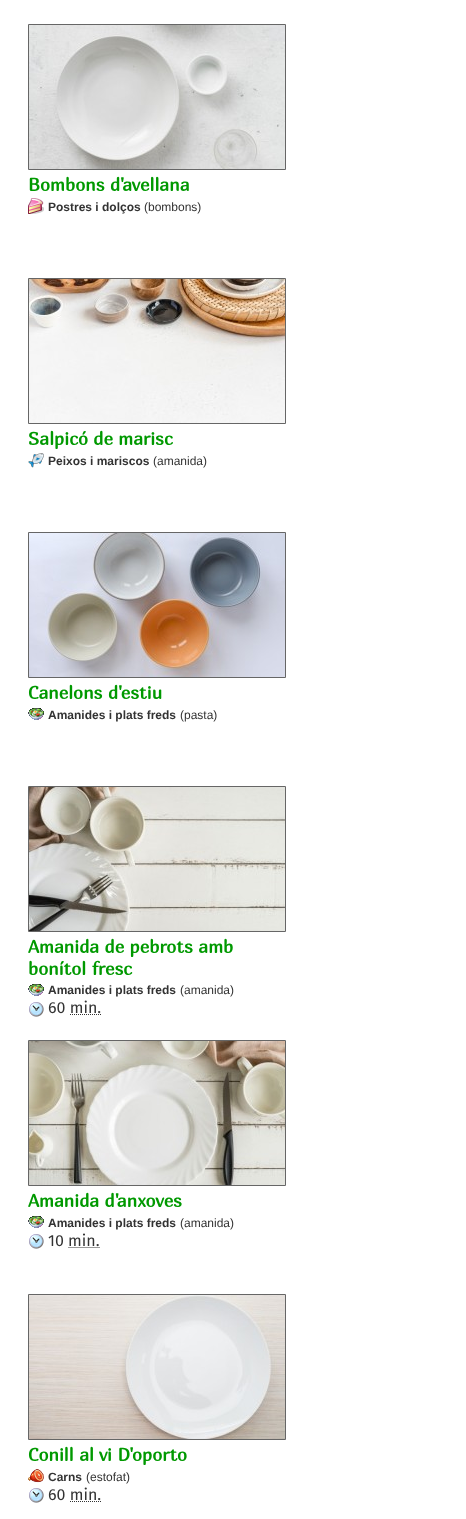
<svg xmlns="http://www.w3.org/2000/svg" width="466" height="1519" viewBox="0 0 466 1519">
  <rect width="100%" height="100%" fill="#fff"/>
  <path d="M28.5 24.5h257v145H28.5z" fill="none" stroke="#666"/>
  <image x="29" y="25" width="256" height="144" href="img/1.png"/>
  <image x="28" y="198" width="16" height="16" href="img/2.png"/>
  <path d="M28.5 278.5h257v145H28.5z" fill="none" stroke="#666"/>
  <image x="29" y="279" width="256" height="144" href="img/3.png"/>
  <image x="28" y="453" width="16" height="15" href="img/4.png"/>
  <path d="M28.5 532.5h257v145H28.5z" fill="none" stroke="#666"/>
  <image x="29" y="533" width="256" height="144" href="img/5.png"/>
  <image x="28" y="708" width="16" height="12" href="img/6.png"/>
  <path d="M28.5 786.5h257v145H28.5z" fill="none" stroke="#666"/>
  <image x="29" y="787" width="256" height="144" href="img/7.png"/>
  <image x="28" y="984" width="16" height="12" href="img/6.png"/>
  <image x="29" y="1002" width="15" height="15" href="img/8.png"/>
  <path d="M70 1014.5H101.5" fill="none" stroke="#333" stroke-dasharray="1 1"/>
  <path d="M28.5 1040.5h257v145H28.5z" fill="none" stroke="#666"/>
  <image x="29" y="1041" width="256" height="144" href="img/9.png"/>
  <image x="28" y="1216" width="16" height="12" href="img/6.png"/>
  <image x="29" y="1234" width="15" height="15" href="img/8.png"/>
  <path d="M68.5 1247.5H100" fill="none" stroke="#333" stroke-dasharray="1 1"/>
  <path d="M28.5 1294.5h257v145H28.5z" fill="none" stroke="#666"/>
  <image x="29" y="1295" width="256" height="144" href="img/10.png"/>
  <image x="28" y="1469" width="16" height="14" href="img/11.png"/>
  <image x="29" y="1488" width="15" height="15" href="img/8.png"/>
  <path d="M70 1501.5H101.5" fill="none" stroke="#333" stroke-dasharray="1 1"/>
  <text x="28" y="191" font-family="Marmelad" font-size="18" font-weight="bold" fill="#090">Bombons d'avellana</text>
  <text x="48" y="211" font-family="Liberation Sans" font-size="12" font-weight="bold" fill="#333">Postres i dolços</text>
  <text x="144" y="211" font-family="Liberation Sans" font-size="12" fill="#333">(bombons)</text>
  <text x="28" y="445" font-family="Marmelad" font-size="18" font-weight="bold" fill="#090">Salpicó de marisc</text>
  <text x="48" y="465" font-family="Liberation Sans" font-size="12" font-weight="bold" fill="#333">Peixos i mariscos</text>
  <text x="153" y="465" font-family="Liberation Sans" font-size="12" fill="#333">(amanida)</text>
  <text x="28" y="699" font-family="Marmelad" font-size="18" font-weight="bold" fill="#090">Canelons d'estiu</text>
  <text x="48" y="719" font-family="Liberation Sans" font-size="12" font-weight="bold" fill="#333">Amanides i plats freds</text>
  <text x="180" y="719" font-family="Liberation Sans" font-size="12" fill="#333">(pasta)</text>
  <g font-family="Marmelad" font-size="18" font-weight="bold" fill="#090">
    <text x="28" y="953">Amanida de pebrots amb</text>
    <text x="28" y="975">bonítol fresc</text>
  </g>
  <text x="48" y="994" font-family="Liberation Sans" font-size="12" font-weight="bold" fill="#333">Amanides i plats freds</text>
  <text x="180" y="994" font-family="Liberation Sans" font-size="12" fill="#333">(amanida)</text>
  <text x="48" y="1013" font-family="Fira Sans" font-size="16" fill="#333">60 min.</text>
  <text x="28" y="1207" font-family="Marmelad" font-size="18" font-weight="bold" fill="#090">Amanida d'anxoves</text>
  <text x="48" y="1227" font-family="Liberation Sans" font-size="12" font-weight="bold" fill="#333">Amanides i plats freds</text>
  <text x="180" y="1227" font-family="Liberation Sans" font-size="12" fill="#333">(amanida)</text>
  <text x="48" y="1246" font-family="Fira Sans" font-size="16" fill="#333">10 min.</text>
  <text x="28" y="1461" font-family="Marmelad" font-size="18" font-weight="bold" fill="#090">Conill al vi D'oporto</text>
  <text x="48" y="1481" font-family="Liberation Sans" font-size="12" font-weight="bold" fill="#333">Carns</text>
  <text x="86" y="1481" font-family="Liberation Sans" font-size="12" fill="#333">(estofat)</text>
  <text x="48" y="1500" font-family="Fira Sans" font-size="16" fill="#333">60 min.</text>
</svg>
